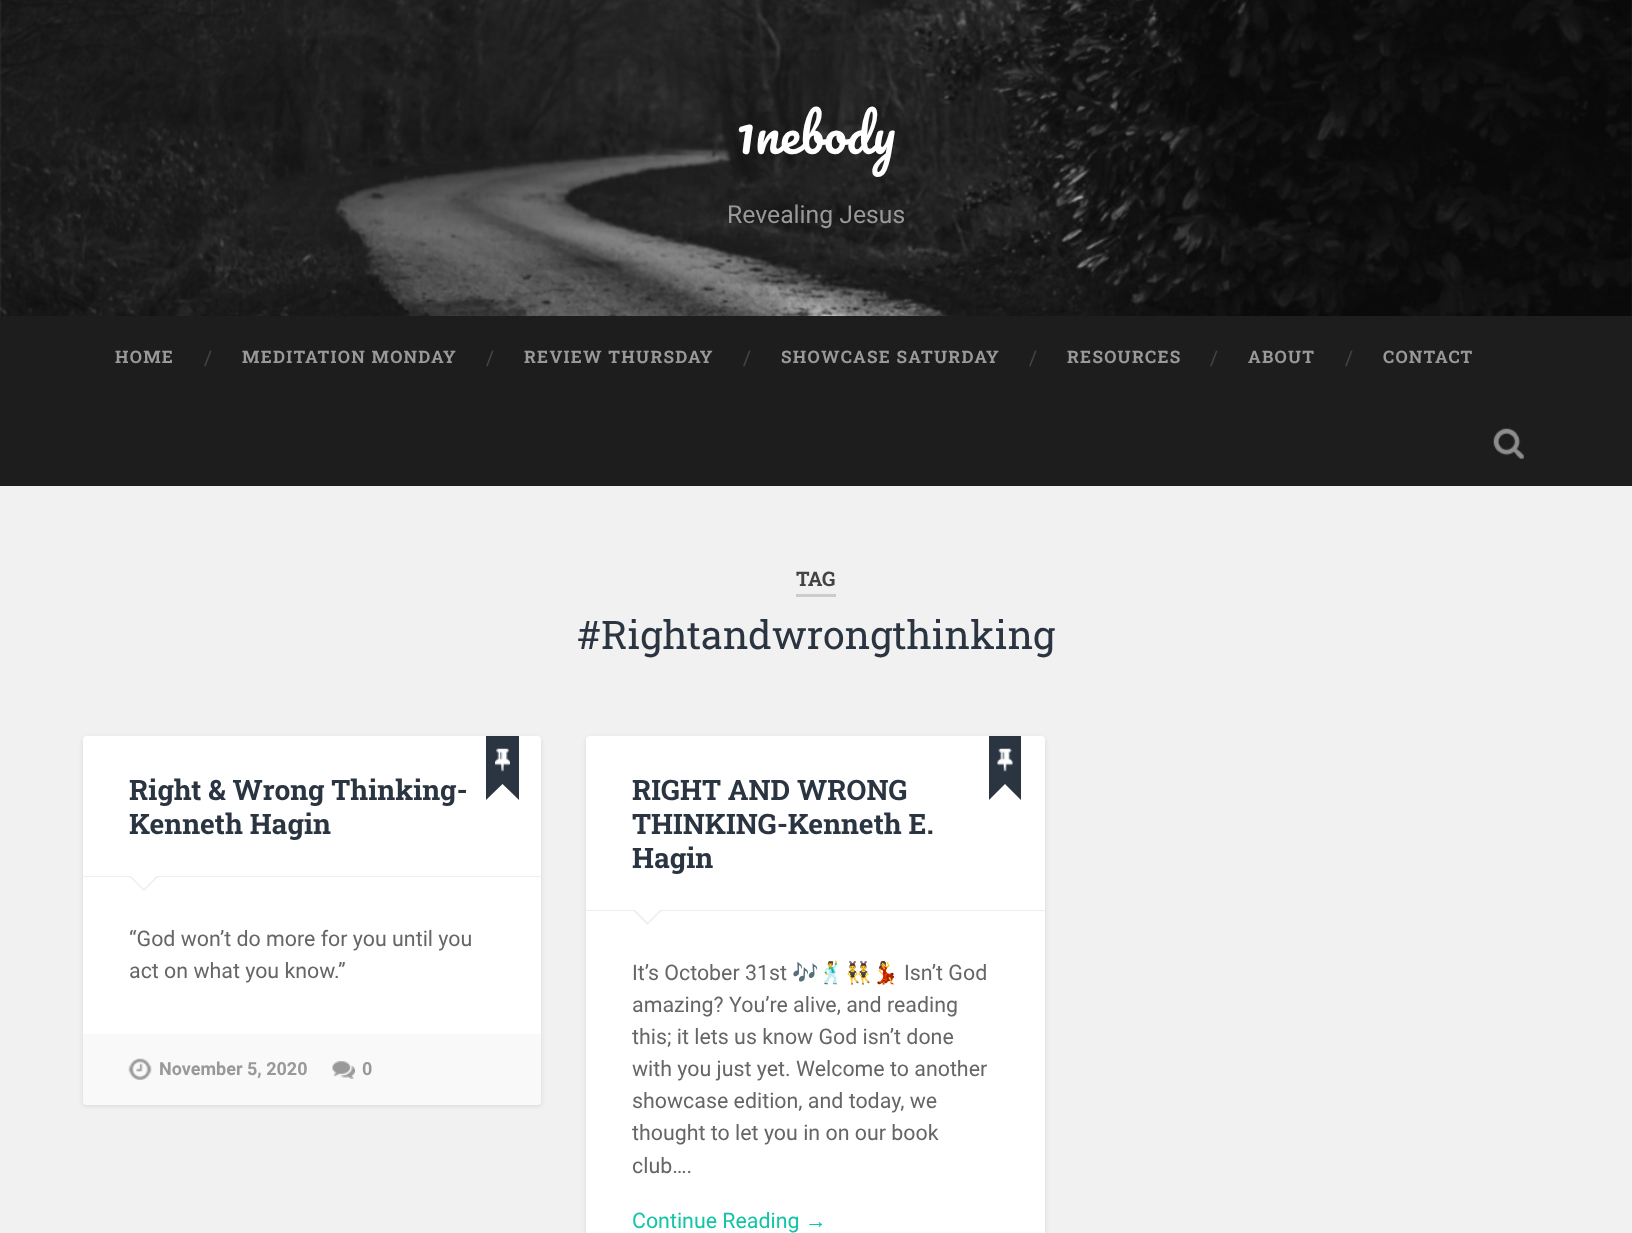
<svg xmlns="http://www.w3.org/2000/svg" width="1632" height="1233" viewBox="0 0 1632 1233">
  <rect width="100%" height="100%" fill="#f1f1f1"/>
  <image x="0" y="0" width="1632" height="316" href="img/1.png"/>
  <path d="M0 316h1632v170H0z" fill="#1d1d1d"/>
  <image x="1493" y="428" width="31" height="31" href="img/2.png"/>
  <path d="M796 594h40v3H796z" fill="#ccc"/>
  <rect x="83" y="738" width="458" height="368" rx="4" fill="#0000001a" filter="blur(2.5px)"/>
  <rect x="83" y="736" width="458" height="369" rx="4" fill="#fff"/>
  <path d="M83 876h458v1H83z" fill="#eee"/>
  <path d="M486 736h33v48H486z" fill="#2b3542"/>
  <image x="495" y="748" width="15" height="24" href="img/3.png"/>
  <path d="M519 767.5V800L502.5 784Z" fill="#2b3542"/>
  <path d="M486 800V767.5L502.5 784Z" fill="#2b3542"/>
  <path d="M129 876H159L144 891Z" fill="#eee"/>
  <path d="M130 875H157.5L144 889Z" fill="#fff"/>
  <path d="M83 1034H541V1101C541 1103 539 1105 537 1105H87C85 1105 83 1103 83 1101Z" fill="#f9f9f9"/>
  <image x="128" y="1058" width="24" height="22" href="img/4.png"/>
  <image x="332" y="1061" width="23" height="18" href="img/5.png"/>
  <rect x="586" y="738" width="459" height="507" rx="4" fill="#0000001a" filter="blur(2.5px)"/>
  <rect x="586" y="736" width="459" height="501" rx="4" fill="#fff"/>
  <path d="M586 910h459v1H586z" fill="#eee"/>
  <path d="M989 736h32v48H989z" fill="#2b3542"/>
  <image x="997" y="748" width="16" height="24" href="img/6.png"/>
  <path d="M1021 767.5V800L1005 784ZM989 800V767.5L1005 784Z" fill="#2b3542"/>
  <path d="M632.5 910H662.5L647.5 925Z" fill="#eee"/>
  <path d="M634 909H661L647.5 922.5Z" fill="#fff"/>
  <text x="736" y="154" font-family="Pacifico" font-size="50.5" fill="#fff">1nebody</text>
  <text x="727" y="223" font-family="Roboto" font-size="24.75" fill="#999">Revealing Jesus</text>
  <text x="115" y="363" font-family="Roboto Slab" font-size="17.25" font-weight="bold" letter-spacing="1.25" fill="#999">HOME</text>
  <text x="204" y="365" font-family="Roboto Slab" font-size="20" fill="#444">/</text>
  <text x="242" y="363" font-family="Roboto Slab" font-size="17.25" font-weight="bold" letter-spacing="1.25" fill="#999">MEDITATION MONDAY</text>
  <text x="486" y="365" font-family="Roboto Slab" font-size="20" fill="#444">/</text>
  <text x="524" y="363" font-family="Roboto Slab" font-size="17.25" font-weight="bold" letter-spacing="1.25" fill="#999">REVIEW THURSDAY</text>
  <text x="743" y="365" font-family="Roboto Slab" font-size="20" fill="#444">/</text>
  <text x="781" y="363" font-family="Roboto Slab" font-size="17.25" font-weight="bold" letter-spacing="1.25" fill="#999">SHOWCASE SATURDAY</text>
  <text x="1029" y="365" font-family="Roboto Slab" font-size="20" fill="#444">/</text>
  <text x="1067" y="363" font-family="Roboto Slab" font-size="17.25" font-weight="bold" letter-spacing="1.25" fill="#999">RESOURCES</text>
  <text x="1210" y="365" font-family="Roboto Slab" font-size="20" fill="#444">/</text>
  <text x="1248" y="363" font-family="Roboto Slab" font-size="17.25" font-weight="bold" letter-spacing="1.25" fill="#999">ABOUT</text>
  <text x="1345" y="365" font-family="Roboto Slab" font-size="20" fill="#444">/</text>
  <text x="1383" y="363" font-family="Roboto Slab" font-size="17.25" font-weight="bold" letter-spacing="1.25" fill="#999">CONTACT</text>
  <text x="796" y="586" font-family="Roboto Slab" font-size="20" font-weight="bold" fill="#444">TAG</text>
  <text x="577" y="649" font-family="Roboto Slab" font-size="39.4" fill="#2b3542">#Rightandwrongthinking</text>
  <g font-family="Roboto Slab" font-size="28.1" font-weight="bold" fill="#2b3542">
    <text x="129" y="800">Right &amp; Wrong Thinking-</text>
    <text x="129" y="834">Kenneth Hagin</text>
  </g>
  <g font-family="Roboto" font-size="21.4" fill="#666">
    <text x="129" y="946">“God won’t do more for you until you</text>
    <text x="129" y="978">act on what you know.”</text>
  </g>
  <g font-family="Roboto" font-size="18" font-weight="bold" fill="#999">
    <text x="159" y="1075">November 5, 2020</text>
    <text x="362" y="1075">0</text>
  </g>
  <g font-family="Roboto Slab" font-size="28.1" font-weight="bold" fill="#2b3542">
    <text x="632" y="800">RIGHT AND WRONG</text>
    <text x="632" y="834">THINKING-Kenneth E.</text>
    <text x="632" y="868">Hagin</text>
  </g>
  <text x="632" y="980" font-family="Roboto" font-size="21.4" fill="#666">It’s October 31st</text>
  <text x="792" y="980" font-family="Noto Color Emoji" font-size="21.4" fill="#666">🎶🕺👯‍♂️💃</text>
  <g font-family="Roboto" font-size="21.4" fill="#666">
    <text x="904" y="980">Isn’t God</text>
    <text x="632" y="1012">amazing? You’re alive, and reading</text>
    <text x="632" y="1044">this; it lets us know God isn’t done</text>
    <text x="632" y="1076">with you just yet. Welcome to another</text>
    <text x="632" y="1108">showcase edition, and today, we</text>
    <text x="632" y="1140">thought to let you in on our book</text>
    <text x="632" y="1173">club….</text>
  </g>
  <text x="632" y="1228" font-family="Roboto" font-size="21.4" fill="#13c4a5">Continue Reading</text>
  <text x="805" y="1228" font-family="Liberation Sans" font-size="21.4" fill="#13c4a5">→</text>
</svg>
